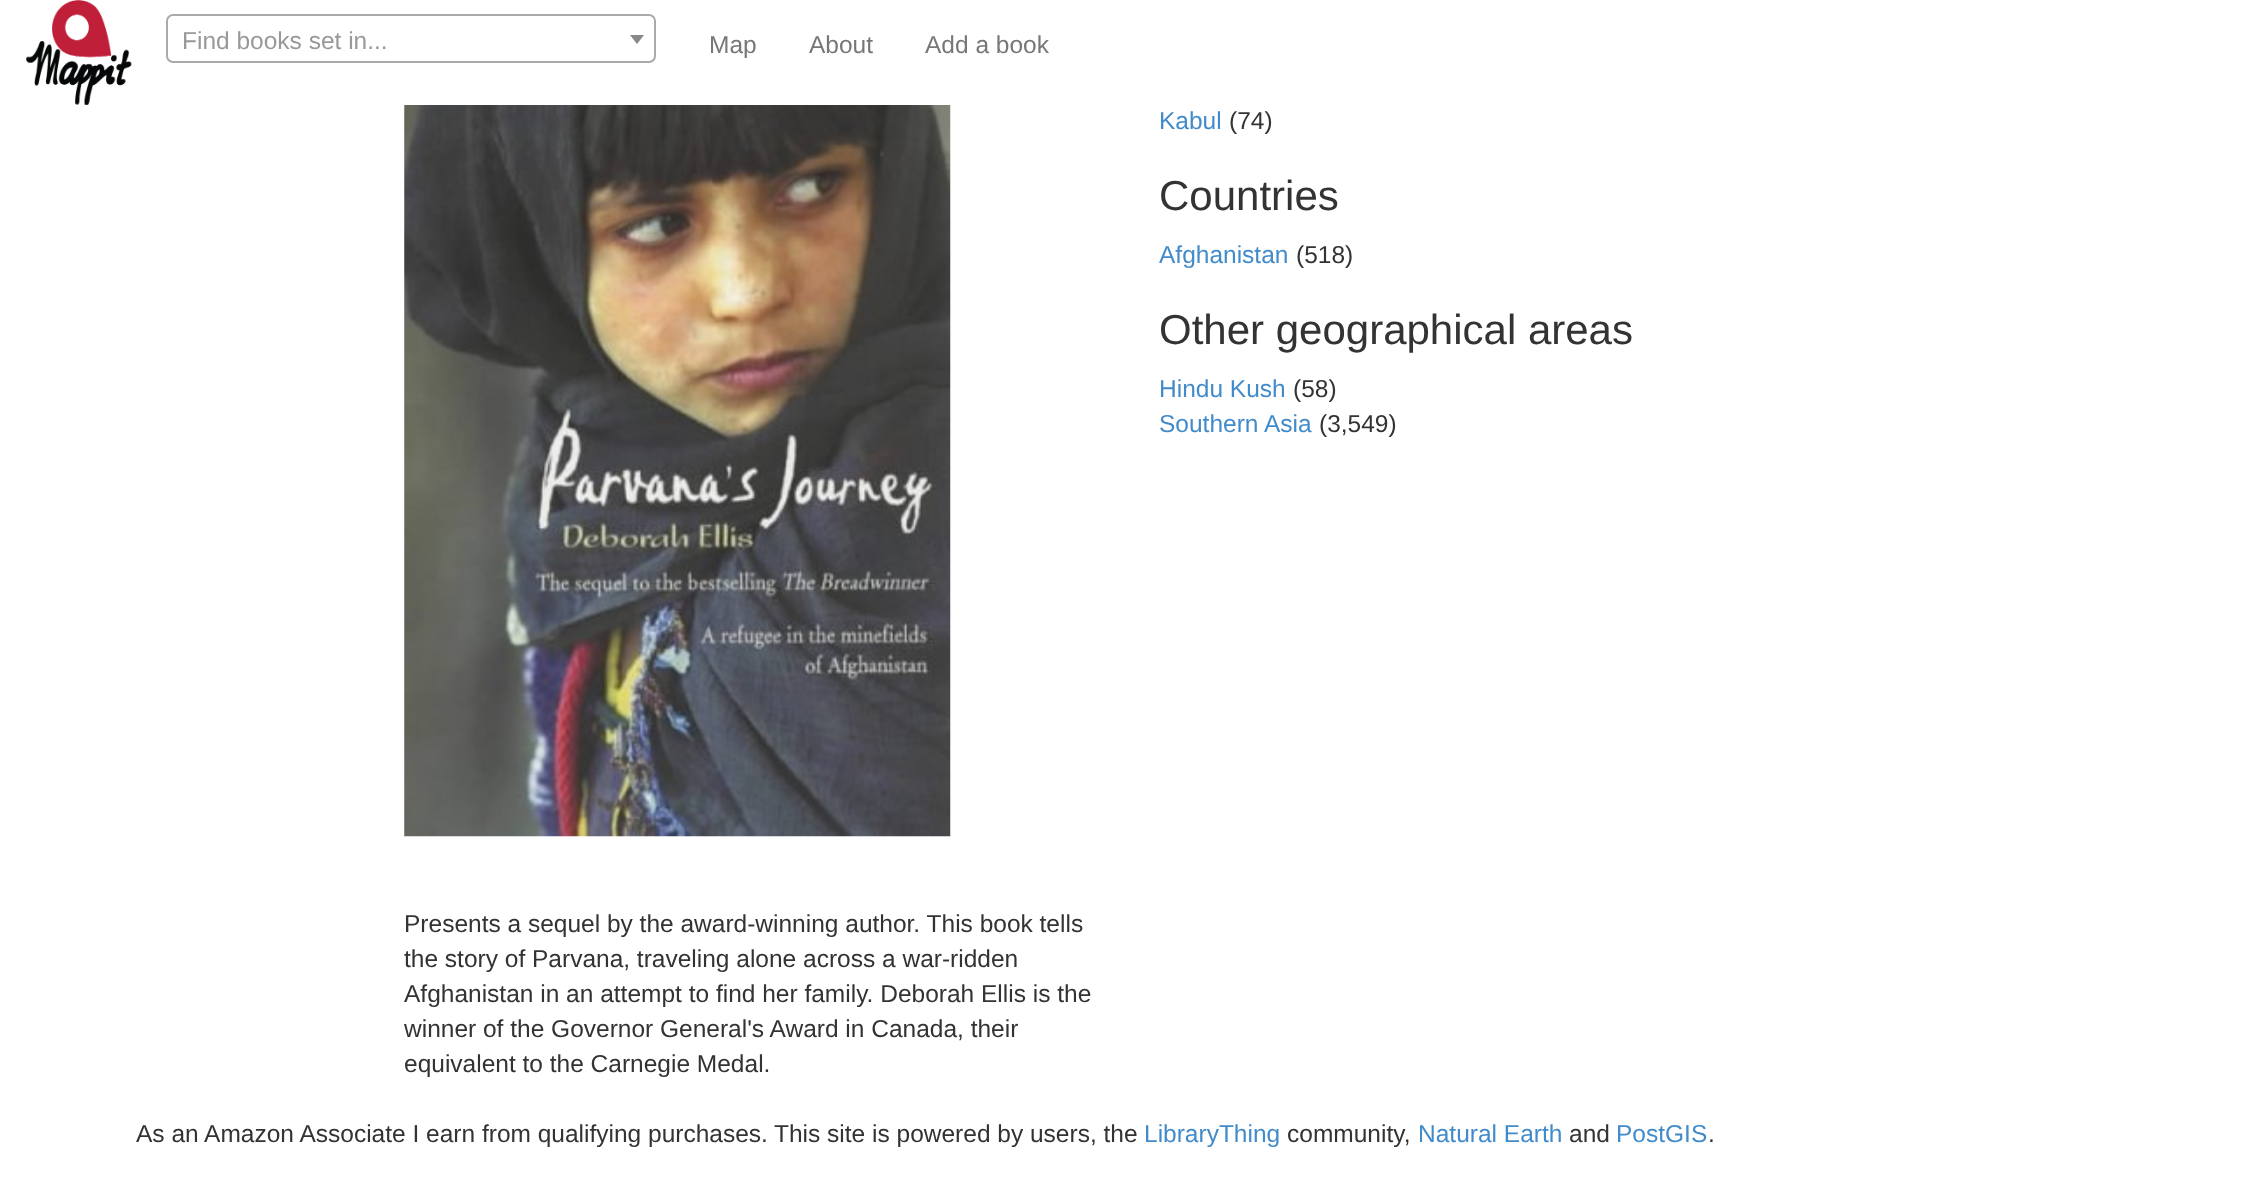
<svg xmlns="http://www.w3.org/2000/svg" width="2265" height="1186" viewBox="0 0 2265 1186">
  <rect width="100%" height="100%" fill="#fff"/>
  <image x="26" y="0" width="106" height="105" href="img/1.png"/>
  <rect x="167" y="15" width="488" height="47" rx="6" fill="none" stroke="#aaa" stroke-width="2"/>
  <path d="M630 35H644L637 44Z" fill="#888"/>
  <image x="404" y="105" width="547" height="732" href="img/2.png"/>
  <text x="182" y="49" font-family="Liberation Sans" font-size="24.5" fill="#999">Find books set in...</text>
  <g font-family="Liberation Sans" font-size="24.5" fill="#777">
    <text x="709" y="53">Map</text>
    <text x="809" y="53">About</text>
    <text x="925" y="53">Add a book</text>
  </g>
  <text x="1159" y="129" font-family="Liberation Sans" font-size="24.5" fill="#428bca">Kabul</text>
  <text x="1229" y="129" font-family="Liberation Sans" font-size="24.5" fill="#333">(74)</text>
  <text x="1159" y="210" font-family="Liberation Sans" font-size="42" fill="#333">Countries</text>
  <text x="1159" y="263" font-family="Liberation Sans" font-size="24.5" fill="#428bca">Afghanistan</text>
  <text x="1296" y="263" font-family="Liberation Sans" font-size="24.5" fill="#333">(518)</text>
  <text x="1159" y="344" font-family="Liberation Sans" font-size="42" fill="#333">Other geographical areas</text>
  <text x="1159" y="397" font-family="Liberation Sans" font-size="24.5" fill="#428bca">Hindu Kush</text>
  <text x="1293" y="397" font-family="Liberation Sans" font-size="24.5" fill="#333">(58)</text>
  <text x="1159" y="432" font-family="Liberation Sans" font-size="24.5" fill="#428bca">Southern Asia</text>
  <g font-family="Liberation Sans" font-size="24.5" fill="#333">
    <text x="1319" y="432">(3,549)</text>
    <text x="404" y="932">Presents a sequel by the award-winning author. This book tells</text>
    <text x="404" y="967">the story of Parvana, traveling alone across a war-ridden</text>
    <text x="404" y="1002">Afghanistan in an attempt to find her family. Deborah Ellis is the</text>
    <text x="404" y="1037">winner of the Governor General's Award in Canada, their</text>
    <text x="404" y="1072">equivalent to the Carnegie Medal.</text>
    <text x="136" y="1142">As an Amazon Associate I earn from qualifying purchases.</text>
    <text x="774" y="1142">This site is powered by users, the</text>
  </g>
  <text x="1144" y="1142" font-family="Liberation Sans" font-size="24.5" fill="#428bca">LibraryThing</text>
  <text x="1287" y="1142" font-family="Liberation Sans" font-size="24.5" fill="#333">community,</text>
  <text x="1418" y="1142" font-family="Liberation Sans" font-size="24.5" fill="#428bca">Natural Earth</text>
  <text x="1569" y="1142" font-family="Liberation Sans" font-size="24.5" fill="#333">and</text>
  <text x="1616" y="1142" font-family="Liberation Sans" font-size="24.5" fill="#428bca">PostGIS</text>
  <text x="1708" y="1142" font-family="Liberation Sans" font-size="24.5" fill="#333">.</text>
</svg>
